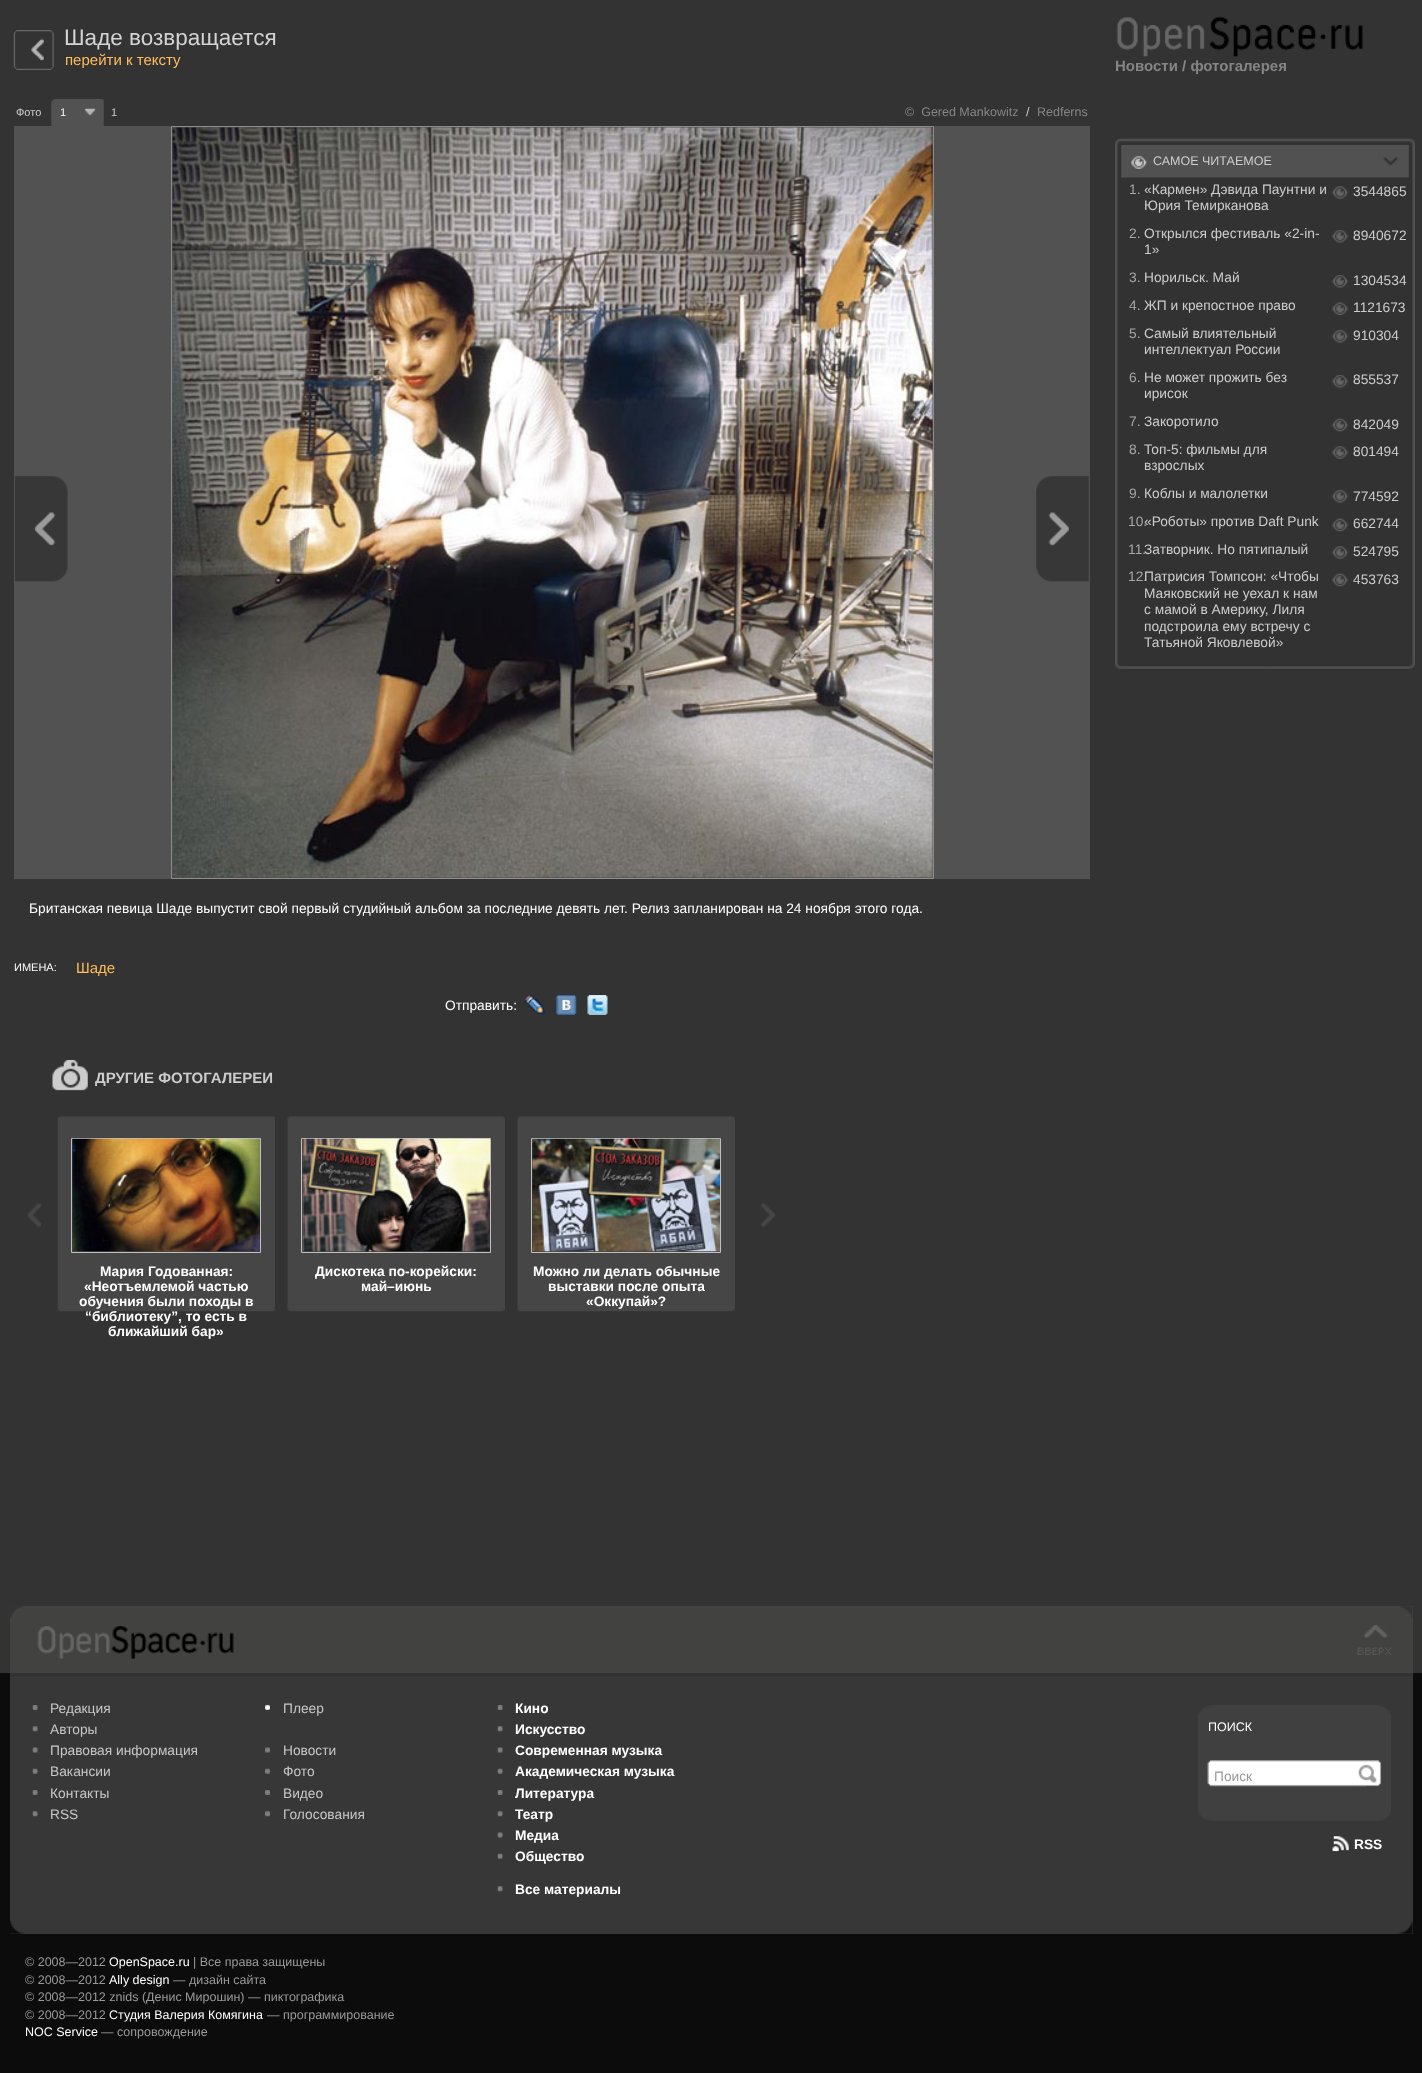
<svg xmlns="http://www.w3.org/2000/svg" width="1422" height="2073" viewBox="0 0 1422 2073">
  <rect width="100%" height="100%" fill="#333"/>
  <image x="13" y="30" width="41" height="40" href="img/1.png"/>
  <image x="51" y="99" width="53" height="27" href="img/2.png"/>
  <path d="M14 126h1076v753H14z" fill="#525252"/>
  <path d="M171.5 126.5h762v752H171.5z" fill="none" stroke="#8d8c8a"/>
  <image x="15" y="476" width="53" height="106" href="img/3.png"/>
  <image x="172" y="127" width="761" height="751" href="img/4.png"/>
  <image x="1036" y="476" width="53" height="106" href="img/5.png"/>
  <image x="525" y="995" width="20" height="20" href="img/6.png"/>
  <image x="556" y="995" width="21" height="20" href="img/7.png"/>
  <image x="587" y="995" width="21" height="20" href="img/8.png"/>
  <image x="52" y="1060" width="36" height="31" href="img/9.png"/>
  <image x="87" y="1071" width="1" height="18" href="img/10.png"/>
  <image x="27" y="1203" width="15" height="24" href="img/11.png"/>
  <image x="761" y="1203" width="14" height="24" href="img/12.png"/>
  <image x="57" y="1116" width="218" height="196" href="img/13.png"/>
  <path d="M71.5 1138.5h189v114H71.5z" fill="none" stroke="#bfbfbf"/>
  <image x="72" y="1138" width="188" height="114" href="img/14.png"/>
  <image x="287" y="1116" width="218" height="196" href="img/15.png"/>
  <path d="M301.5 1138.5h189v114H301.5z" fill="none" stroke="#bfbfbf"/>
  <image x="302" y="1138" width="188" height="114" href="img/16.png"/>
  <image x="517" y="1116" width="218" height="196" href="img/17.png"/>
  <path d="M531.5 1138.5h189v114H531.5z" fill="none" stroke="#bfbfbf"/>
  <image x="532" y="1138" width="188" height="114" href="img/18.png"/>
  <image x="1116" y="16" width="247" height="41" href="img/19.png"/>
  <image x="1115" y="138" width="300" height="7" href="img/20.png"/>
  <image x="1115" y="145" width="300" height="524" href="img/21.png"/>
  <image x="1121" y="145" width="288" height="33" href="img/22.png"/>
  <image x="1332" y="186" width="16" height="13" href="img/23.png"/>
  <image x="1332" y="230" width="16" height="13" href="img/24.png"/>
  <image x="1332" y="275" width="16" height="13" href="img/24.png"/>
  <image x="1332" y="302" width="16" height="13" href="img/25.png"/>
  <image x="1332" y="330" width="16" height="13" href="img/24.png"/>
  <image x="1332" y="375" width="16" height="13" href="img/24.png"/>
  <image x="1332" y="418" width="16" height="14" href="img/26.png"/>
  <image x="1332" y="446" width="16" height="13" href="img/23.png"/>
  <image x="1332" y="490" width="16" height="13" href="img/24.png"/>
  <image x="1332" y="518" width="16" height="14" href="img/26.png"/>
  <image x="1332" y="546" width="16" height="13" href="img/23.png"/>
  <image x="1332" y="573" width="16" height="14" href="img/26.png"/>
  <path d="M10 1606h1403v67H10z" fill="#424241"/>
  <image x="10" y="1606" width="13" height="13" href="img/27.png"/>
  <image x="1400" y="1606" width="13" height="12" href="img/28.png"/>
  <image x="37" y="1626" width="197" height="33" href="img/29.png"/>
  <image x="1357" y="1625" width="35" height="30" href="img/30.png"/>
  <path d="M0 1934h1422v139H0z" fill="#0c0c0c"/>
  <path d="M10 1676h1403v258H10z" fill="#373737"/>
  <image x="1398" y="1921" width="15" height="13" href="img/31.png"/>
  <path d="M1413 1673h9v261H1413z" fill="#0c0c0c"/>
  <path d="M0 1673h10v261H0z" fill="#0c0c0c"/>
  <image x="10" y="1921" width="14" height="13" href="img/32.png"/>
  <image x="32" y="1705" width="6" height="5" href="img/33.png"/>
  <image x="32" y="1726" width="6" height="6" href="img/34.png"/>
  <image x="32" y="1747" width="6" height="6" href="img/35.png"/>
  <image x="32" y="1768" width="6" height="6" href="img/36.png"/>
  <image x="32" y="1790" width="6" height="5" href="img/33.png"/>
  <image x="32" y="1811" width="6" height="6" href="img/34.png"/>
  <image x="265" y="1705" width="5" height="5" href="img/37.png"/>
  <image x="265" y="1747" width="5" height="6" href="img/38.png"/>
  <image x="265" y="1768" width="5" height="6" href="img/39.png"/>
  <image x="265" y="1790" width="5" height="5" href="img/40.png"/>
  <image x="265" y="1811" width="5" height="6" href="img/41.png"/>
  <image x="497" y="1705" width="6" height="5" href="img/33.png"/>
  <image x="497" y="1726" width="6" height="6" href="img/34.png"/>
  <image x="497" y="1747" width="6" height="6" href="img/35.png"/>
  <image x="497" y="1768" width="6" height="6" href="img/36.png"/>
  <image x="497" y="1790" width="6" height="5" href="img/33.png"/>
  <image x="497" y="1811" width="6" height="6" href="img/34.png"/>
  <image x="497" y="1832" width="6" height="6" href="img/35.png"/>
  <image x="497" y="1853" width="6" height="6" href="img/36.png"/>
  <image x="497" y="1886" width="6" height="6" href="img/34.png"/>
  <image x="1199" y="1705" width="192" height="10" href="img/42.png"/>
  <path d="M1198 1715h193v97H1198z" fill="#404040"/>
  <image x="1198" y="1811" width="193" height="10" href="img/43.png"/>
  <image x="1207" y="1760" width="160" height="27" href="img/44.png"/>
  <image x="1358" y="1760" width="24" height="27" href="img/45.png"/>
  <image x="1332" y="1836" width="17" height="16" href="img/46.png"/>
  <text x="64" y="45" font-family="Liberation Sans" font-size="22.5" fill="#d3d3d3">Шаде возвращается</text>
  <text x="65" y="65" font-family="Liberation Sans" font-size="15" fill="#ffbd5b">перейти к тексту</text>
  <text x="16" y="116" font-family="Liberation Sans" font-size="11" fill="#ccc">Фото</text>
  <text x="60" y="116" font-family="Liberation Sans" font-size="11" fill="#fff">1</text>
  <text x="111" y="116" font-family="Liberation Sans" font-size="11" fill="#ccc">1</text>
  <text x="905" y="116" font-family="Liberation Sans" font-size="12.5" fill="#858585" xml:space="preserve">©  Gered Mankowitz</text>
  <text x="1026" y="116" font-family="Liberation Sans" font-size="12.5" fill="#ccc">/</text>
  <text x="1037" y="116" font-family="Liberation Sans" font-size="12.5" fill="#858585">Redferns</text>
  <text x="29" y="913" font-family="Liberation Sans" font-size="13.75" fill="#fff">Британская певица Шаде выпустит свой первый студийный альбом за последние девять лет. Релиз запланирован на 24 ноября этого года.</text>
  <text x="14" y="971" font-family="Liberation Sans" font-size="11" fill="#fff">ИМЕНА:</text>
  <text x="76" y="973" font-family="Liberation Sans" font-size="15" fill="#ffbd5b">Шаде</text>
  <text x="445" y="1010" font-family="Liberation Sans" font-size="13.75" fill="#fff">Отправить:</text>
  <text x="95" y="1083" font-family="Liberation Sans" font-size="15" font-weight="bold" fill="#ccc">ДРУГИЕ ФОТОГАЛЕРЕИ</text>
  <g font-family="Liberation Sans" font-size="13.75" font-weight="bold" fill="#fff">
    <text x="100" y="1276">Мария Годованная:</text>
    <text x="84" y="1291">«Неотъемлемой частью</text>
    <text x="79" y="1306">обучения были походы в</text>
    <text x="85" y="1321">“библиотеку”, то есть в</text>
    <text x="108" y="1336">ближайший бар»</text>
    <text x="315" y="1276">Дискотека по-корейски:</text>
    <text x="361" y="1291">май–июнь</text>
    <text x="533" y="1276">Можно ли делать обычные</text>
    <text x="548" y="1291">выставки после опыта</text>
    <text x="586" y="1306">«Оккупай»?</text>
  </g>
  <text x="1115" y="71" font-family="Liberation Sans" font-size="15" font-weight="bold" fill="#858585">Новости / фотогалерея</text>
  <text x="1153" y="165" font-family="Liberation Sans" font-size="12.5" fill="#ccc">САМОЕ ЧИТАЕМОЕ</text>
  <text x="1129" y="194" font-family="Liberation Sans" font-size="13.75" fill="#a6a6a7">1.</text>
  <g font-family="Liberation Sans" font-size="13.75" fill="#ccc">
    <text x="1144" y="194">«Кармен» Дэвида Паунтни и</text>
    <text x="1144" y="210">Юрия Темирканова</text>
    <text x="1353" y="196">3544865</text>
  </g>
  <text x="1129" y="238" font-family="Liberation Sans" font-size="13.75" fill="#a6a6a7">2.</text>
  <g font-family="Liberation Sans" font-size="13.75" fill="#ccc">
    <text x="1144" y="238">Открылся фестиваль «2-in-</text>
    <text x="1144" y="254">1»</text>
    <text x="1353" y="240">8940672</text>
  </g>
  <text x="1129" y="282" font-family="Liberation Sans" font-size="13.75" fill="#a6a6a7">3.</text>
  <g font-family="Liberation Sans" font-size="13.75" fill="#ccc">
    <text x="1144" y="282">Норильск. Май</text>
    <text x="1353" y="285">1304534</text>
  </g>
  <text x="1129" y="310" font-family="Liberation Sans" font-size="13.75" fill="#a6a6a7">4.</text>
  <g font-family="Liberation Sans" font-size="13.75" fill="#ccc">
    <text x="1144" y="310">ЖП и крепостное право</text>
    <text x="1353" y="312">1121673</text>
  </g>
  <text x="1129" y="338" font-family="Liberation Sans" font-size="13.75" fill="#a6a6a7">5.</text>
  <g font-family="Liberation Sans" font-size="13.75" fill="#ccc">
    <text x="1144" y="338">Самый влиятельный</text>
    <text x="1144" y="354">интеллектуал России</text>
    <text x="1353" y="340">910304</text>
  </g>
  <text x="1129" y="382" font-family="Liberation Sans" font-size="13.75" fill="#a6a6a7">6.</text>
  <g font-family="Liberation Sans" font-size="13.75" fill="#ccc">
    <text x="1144" y="382">Не может прожить без</text>
    <text x="1144" y="398">ирисок</text>
    <text x="1353" y="384">855537</text>
  </g>
  <text x="1129" y="426" font-family="Liberation Sans" font-size="13.75" fill="#a6a6a7">7.</text>
  <g font-family="Liberation Sans" font-size="13.75" fill="#ccc">
    <text x="1144" y="426">Закоротило</text>
    <text x="1353" y="429">842049</text>
  </g>
  <text x="1129" y="454" font-family="Liberation Sans" font-size="13.75" fill="#a6a6a7">8.</text>
  <g font-family="Liberation Sans" font-size="13.75" fill="#ccc">
    <text x="1144" y="454">Топ-5: фильмы для</text>
    <text x="1144" y="470">взрослых</text>
    <text x="1353" y="456">801494</text>
  </g>
  <text x="1129" y="498" font-family="Liberation Sans" font-size="13.75" fill="#a6a6a7">9.</text>
  <g font-family="Liberation Sans" font-size="13.75" fill="#ccc">
    <text x="1144" y="498">Коблы и малолетки</text>
    <text x="1353" y="501">774592</text>
  </g>
  <text x="1128" y="526" font-family="Liberation Sans" font-size="13.75" fill="#a6a6a7">10.</text>
  <g font-family="Liberation Sans" font-size="13.75" fill="#ccc">
    <text x="1144" y="526">«Роботы» против Daft Punk</text>
    <text x="1353" y="528">662744</text>
  </g>
  <text x="1128" y="554" font-family="Liberation Sans" font-size="13.75" fill="#a6a6a7">11.</text>
  <g font-family="Liberation Sans" font-size="13.75" fill="#ccc">
    <text x="1144" y="554">Затворник. Но пятипалый</text>
    <text x="1353" y="556">524795</text>
  </g>
  <text x="1128" y="581" font-family="Liberation Sans" font-size="13.75" fill="#a6a6a7">12.</text>
  <g font-family="Liberation Sans" font-size="13.75" fill="#ccc">
    <text x="1144" y="581">Патрисия Томпсон: «Чтобы</text>
    <text x="1144" y="598">Маяковский не уехал к нам</text>
    <text x="1144" y="614">с мамой в Америку, Лиля</text>
    <text x="1144" y="631">подстроила ему встречу с</text>
    <text x="1144" y="647">Татьяной Яковлевой»</text>
    <text x="1353" y="584">453763</text>
  </g>
  <g font-family="Liberation Sans" font-size="13.75" fill="#c6c6c6">
    <text x="50" y="1713">Редакция</text>
    <text x="50" y="1734">Авторы</text>
    <text x="50" y="1755">Правовая информация</text>
    <text x="50" y="1776">Вакансии</text>
    <text x="50" y="1798">Контакты</text>
    <text x="50" y="1819">RSS</text>
    <text x="283" y="1713">Плеер</text>
    <text x="283" y="1755">Новости</text>
    <text x="283" y="1776">Фото</text>
    <text x="283" y="1798">Видео</text>
    <text x="283" y="1819">Голосования</text>
  </g>
  <g font-family="Liberation Sans" font-size="13.75" font-weight="bold" fill="#fff">
    <text x="515" y="1713">Кино</text>
    <text x="515" y="1734">Искусство</text>
    <text x="515" y="1755">Современная музыка</text>
    <text x="515" y="1776">Академическая музыка</text>
    <text x="515" y="1798">Литература</text>
    <text x="515" y="1819">Театр</text>
    <text x="515" y="1840">Медиа</text>
    <text x="515" y="1861">Общество</text>
    <text x="515" y="1894">Все материалы</text>
  </g>
  <text x="1208" y="1731" font-family="Liberation Sans" font-size="12.5" fill="#fff">ПОИСК</text>
  <text x="1214" y="1781" font-family="Liberation Sans" font-size="13.75" fill="#999">Поиск</text>
  <text x="1354" y="1849" font-family="Liberation Sans" font-size="13.75" font-weight="bold" fill="#fff">RSS</text>
  <text x="25" y="1966" font-family="Liberation Sans" font-size="12.5" fill="#999">© 2008—2012</text>
  <text x="109" y="1966" font-family="Liberation Sans" font-size="12.5" fill="#fff">OpenSpace.ru</text>
  <g font-family="Liberation Sans" font-size="12.5" fill="#999">
    <text x="193" y="1966">| Все права защищены</text>
    <text x="25" y="1984">© 2008—2012</text>
  </g>
  <text x="109" y="1984" font-family="Liberation Sans" font-size="12.5" fill="#fff">Ally design</text>
  <g font-family="Liberation Sans" font-size="12.5" fill="#999">
    <text x="173" y="1984">— дизайн сайта</text>
    <text x="25" y="2001">© 2008—2012 znids (Денис Мирошин) — пиктографика</text>
    <text x="25" y="2019">© 2008—2012</text>
  </g>
  <text x="109" y="2019" font-family="Liberation Sans" font-size="12.5" fill="#fff">Студия Валерия Комягина</text>
  <text x="267" y="2019" font-family="Liberation Sans" font-size="12.5" fill="#999">— программирование</text>
  <text x="25" y="2036" font-family="Liberation Sans" font-size="12.5" fill="#fff">NOC Service</text>
  <text x="101" y="2036" font-family="Liberation Sans" font-size="12.5" fill="#999">— сопровождение</text>
</svg>
